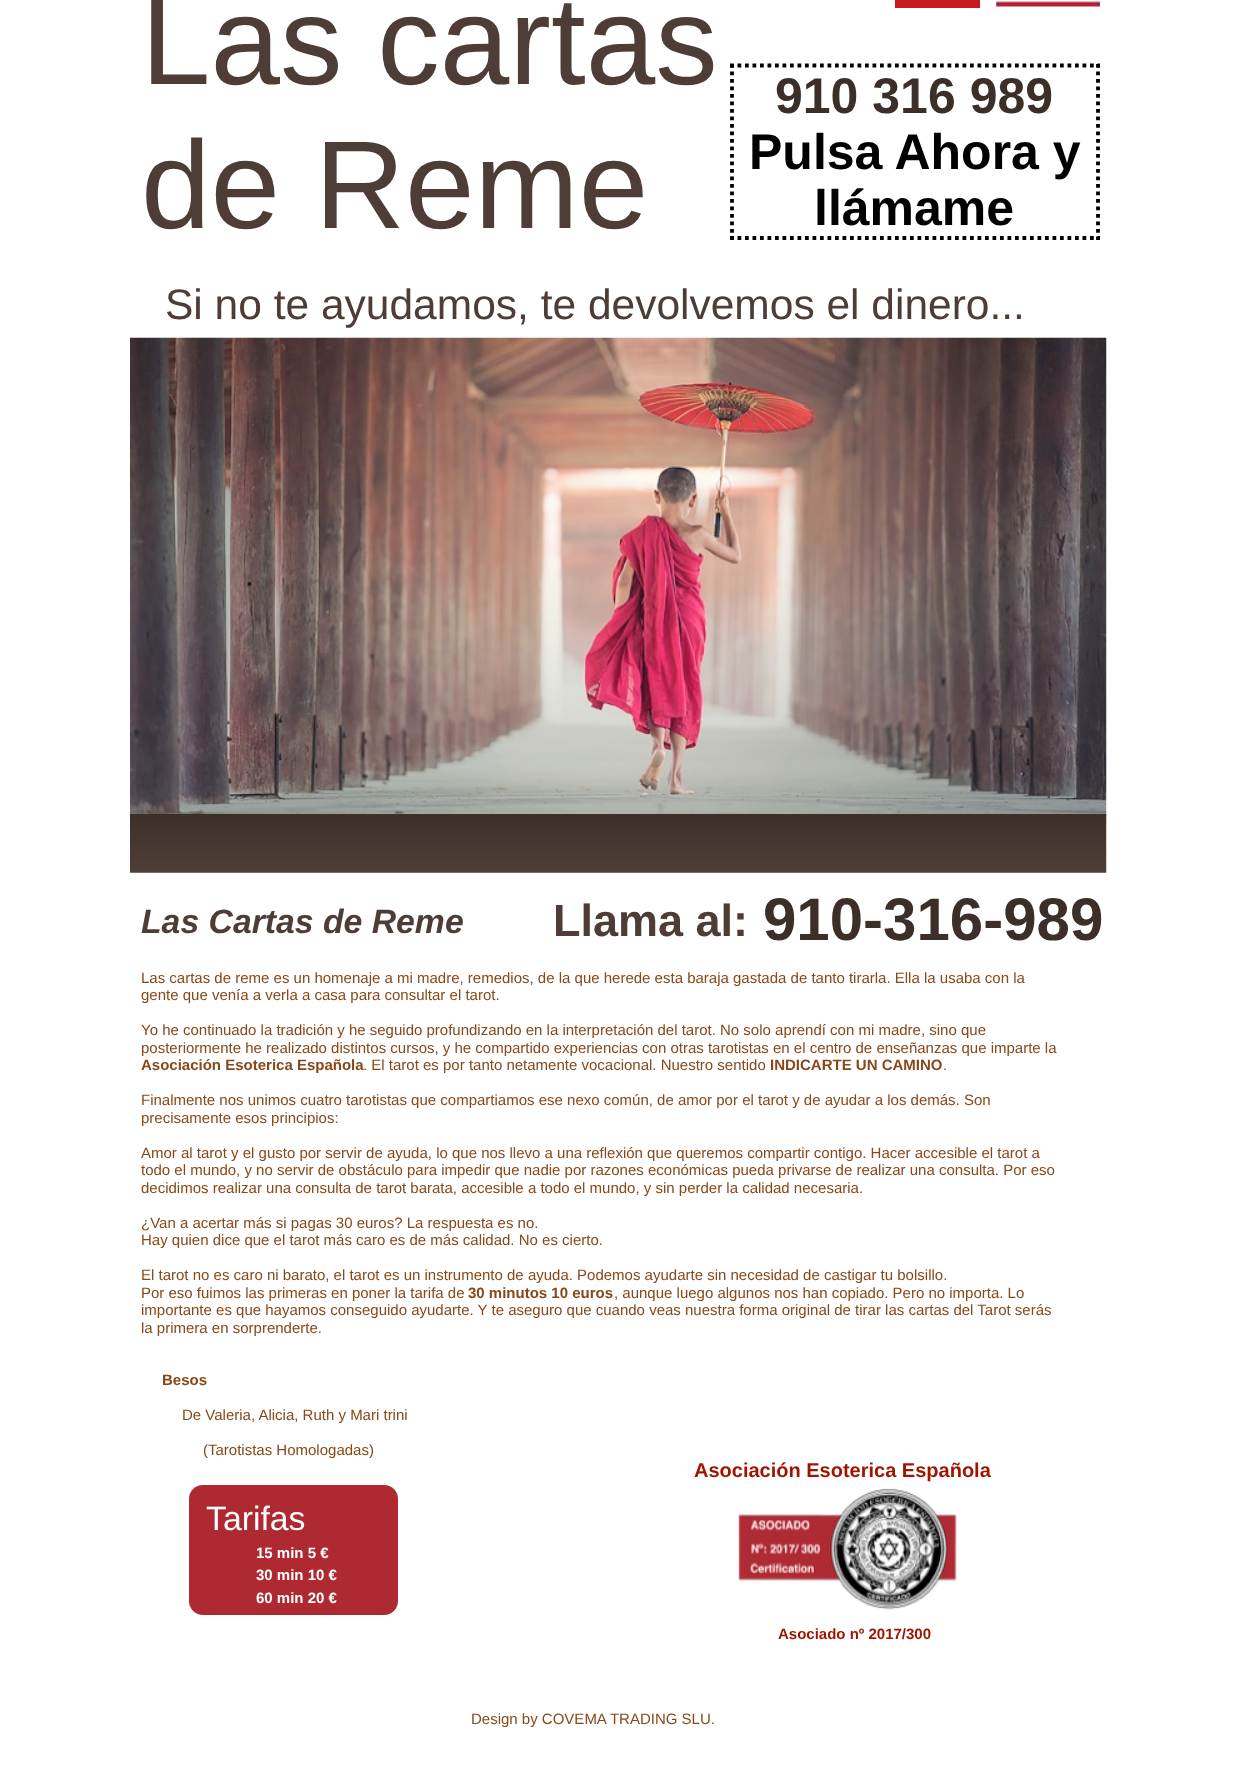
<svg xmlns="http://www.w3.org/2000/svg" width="1236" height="1787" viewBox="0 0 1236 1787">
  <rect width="100%" height="100%" fill="#fff"/>
  <image x="130" y="337" width="977" height="480" href="img/1.png"/>
  <image x="130" y="814" width="977" height="59" href="img/2.png"/>
  <rect x="189" y="1485" width="209" height="130" rx="14" fill="#ae2931"/>
  <image x="738" y="1488" width="219" height="122" href="img/3.png"/>
  <path d="M895 0h85v8H895z" fill="#c61b1e"/>
  <image x="996" y="1" width="104" height="6" href="img/4.png"/>
  <path d="M730 65.5H1100" fill="none" stroke="#000" stroke-width="3.8" stroke-dasharray="3.75 3.75"/>
  <path d="M1098 64V240" fill="none" stroke="#000" stroke-width="3.8" stroke-dasharray="3.75 3.75"/>
  <path d="M730 238H1100" fill="none" stroke="#000" stroke-width="3.8" stroke-dasharray="3.75 3.75"/>
  <path d="M732 64V240" fill="none" stroke="#000" stroke-width="3.8" stroke-dasharray="3.75 3.75"/>
  <g font-family="Liberation Sans" font-size="125" fill="#4d3d36">
    <text x="141" y="84">Las cartas</text>
    <text x="141" y="228">de Reme</text>
  </g>
  <text x="165" y="319" font-family="Liberation Sans" font-size="42.5" fill="#4d3d36">Si no te ayudamos, te devolvemos el dinero...</text>
  <text x="141" y="933" font-family="Liberation Sans" font-size="33.75" font-weight="bold" font-style="italic" fill="#4d3d36">Las Cartas de Reme</text>
  <text x="553" y="936" font-family="Liberation Sans" font-size="45" font-weight="bold" fill="#4d3d36">Llama al:</text>
  <text x="763" y="940" font-family="Liberation Sans" font-size="60" font-weight="bold" fill="#3c2f29">910-316-989</text>
  <g font-family="Liberation Sans" font-size="15" fill="#87481a">
    <text x="141" y="983">Las cartas de reme es un homenaje a mi madre, remedios, de la que herede esta baraja gastada de tanto tirarla. Ella la usaba con la</text>
    <text x="141" y="1000">gente que venía a verla a casa para consultar el tarot.</text>
    <text x="141" y="1035">Yo he continuado la tradición y he seguido profundizando en la interpretación del tarot. No solo aprendí con mi madre, sino que</text>
    <text x="141" y="1053">posteriormente he realizado distintos cursos, y he compartido experiencias con otras tarotistas en el centro de enseñanzas que imparte la</text>
  </g>
  <text x="141" y="1070" font-family="Liberation Sans" font-size="15" font-weight="bold" fill="#87481a">Asociación Esoterica Española</text>
  <text x="363" y="1070" font-family="Liberation Sans" font-size="15" fill="#87481a">. El tarot es por tanto netamente vocacional. Nuestro sentido</text>
  <text x="770" y="1070" font-family="Liberation Sans" font-size="15" font-weight="bold" fill="#87481a">INDICARTE UN CAMINO</text>
  <g font-family="Liberation Sans" font-size="15" fill="#87481a">
    <text x="943" y="1070">.</text>
    <text x="141" y="1105">Finalmente nos unimos cuatro tarotistas que compartiamos ese nexo común, de amor por el tarot y de ayudar a los demás. Son</text>
    <text x="141" y="1123">precisamente esos principios:</text>
    <text x="141" y="1158">Amor al tarot y el gusto por servir de ayuda, lo que nos llevo a una reflexión que queremos compartir contigo. Hacer accesible el tarot a</text>
    <text x="141" y="1175">todo el mundo, y no servir de obstáculo para impedir que nadie por razones económicas pueda privarse de realizar una consulta. Por eso</text>
    <text x="141" y="1193">decidimos realizar una consulta de tarot barata, accesible a todo el mundo, y sin perder la calidad necesaria.</text>
    <text x="141" y="1228">¿Van a acertar más si pagas 30 euros? La respuesta es no.</text>
    <text x="141" y="1245">Hay quien dice que el tarot más caro es de más calidad. No es cierto.</text>
    <text x="141" y="1280">El tarot no es caro ni barato, el tarot es un instrumento de ayuda. Podemos ayudarte sin necesidad de castigar tu bolsillo.</text>
    <text x="141" y="1298">Por eso fuimos las primeras en poner la tarifa de</text>
  </g>
  <text x="468" y="1298" font-family="Liberation Sans" font-size="15" font-weight="bold" fill="#87481a">30 minutos 10 euros</text>
  <g font-family="Liberation Sans" font-size="15" fill="#87481a">
    <text x="614" y="1298">, aunque luego algunos nos han copiado. Pero no importa. Lo</text>
    <text x="141" y="1315">importante es que hayamos conseguido ayudarte. Y te aseguro que cuando veas nuestra forma original de tirar las cartas del Tarot serás</text>
    <text x="141" y="1333">la primera en sorprenderte.</text>
  </g>
  <text x="162" y="1385" font-family="Liberation Sans" font-size="15" font-weight="bold" fill="#87481a">Besos</text>
  <g font-family="Liberation Sans" font-size="15" fill="#87481a">
    <text x="182" y="1420">De Valeria, Alicia, Ruth y Mari trini</text>
    <text x="203" y="1455">(Tarotistas Homologadas)</text>
  </g>
  <text x="694" y="1477" font-family="Liberation Sans" font-size="20" font-weight="bold" fill="#9f1400">Asociación Esoterica Española</text>
  <text x="206" y="1530" font-family="Liberation Sans" font-size="33.75" fill="#fffefe">Tarifas</text>
  <g font-family="Liberation Sans" font-size="15" font-weight="bold" fill="#fffefe">
    <text x="256" y="1558">15 min 5 €</text>
    <text x="256" y="1580">30 min 10 €</text>
    <text x="256" y="1603">60 min 20 €</text>
  </g>
  <text x="778" y="1639" font-family="Liberation Sans" font-size="15" font-weight="bold" fill="#9f1400">Asociado nº 2017/300</text>
  <text x="775" y="113" font-family="Liberation Sans" font-size="50" font-weight="bold" fill="#3c2f29">910 316 989</text>
  <g font-family="Liberation Sans" font-size="50" font-weight="bold" fill="#000">
    <text x="749" y="169">Pulsa Ahora y</text>
    <text x="814" y="225">llámame</text>
  </g>
  <text x="471" y="1724" font-family="Liberation Sans" font-size="15" fill="#87481a">Design by COVEMA TRADING SLU.</text>
</svg>
